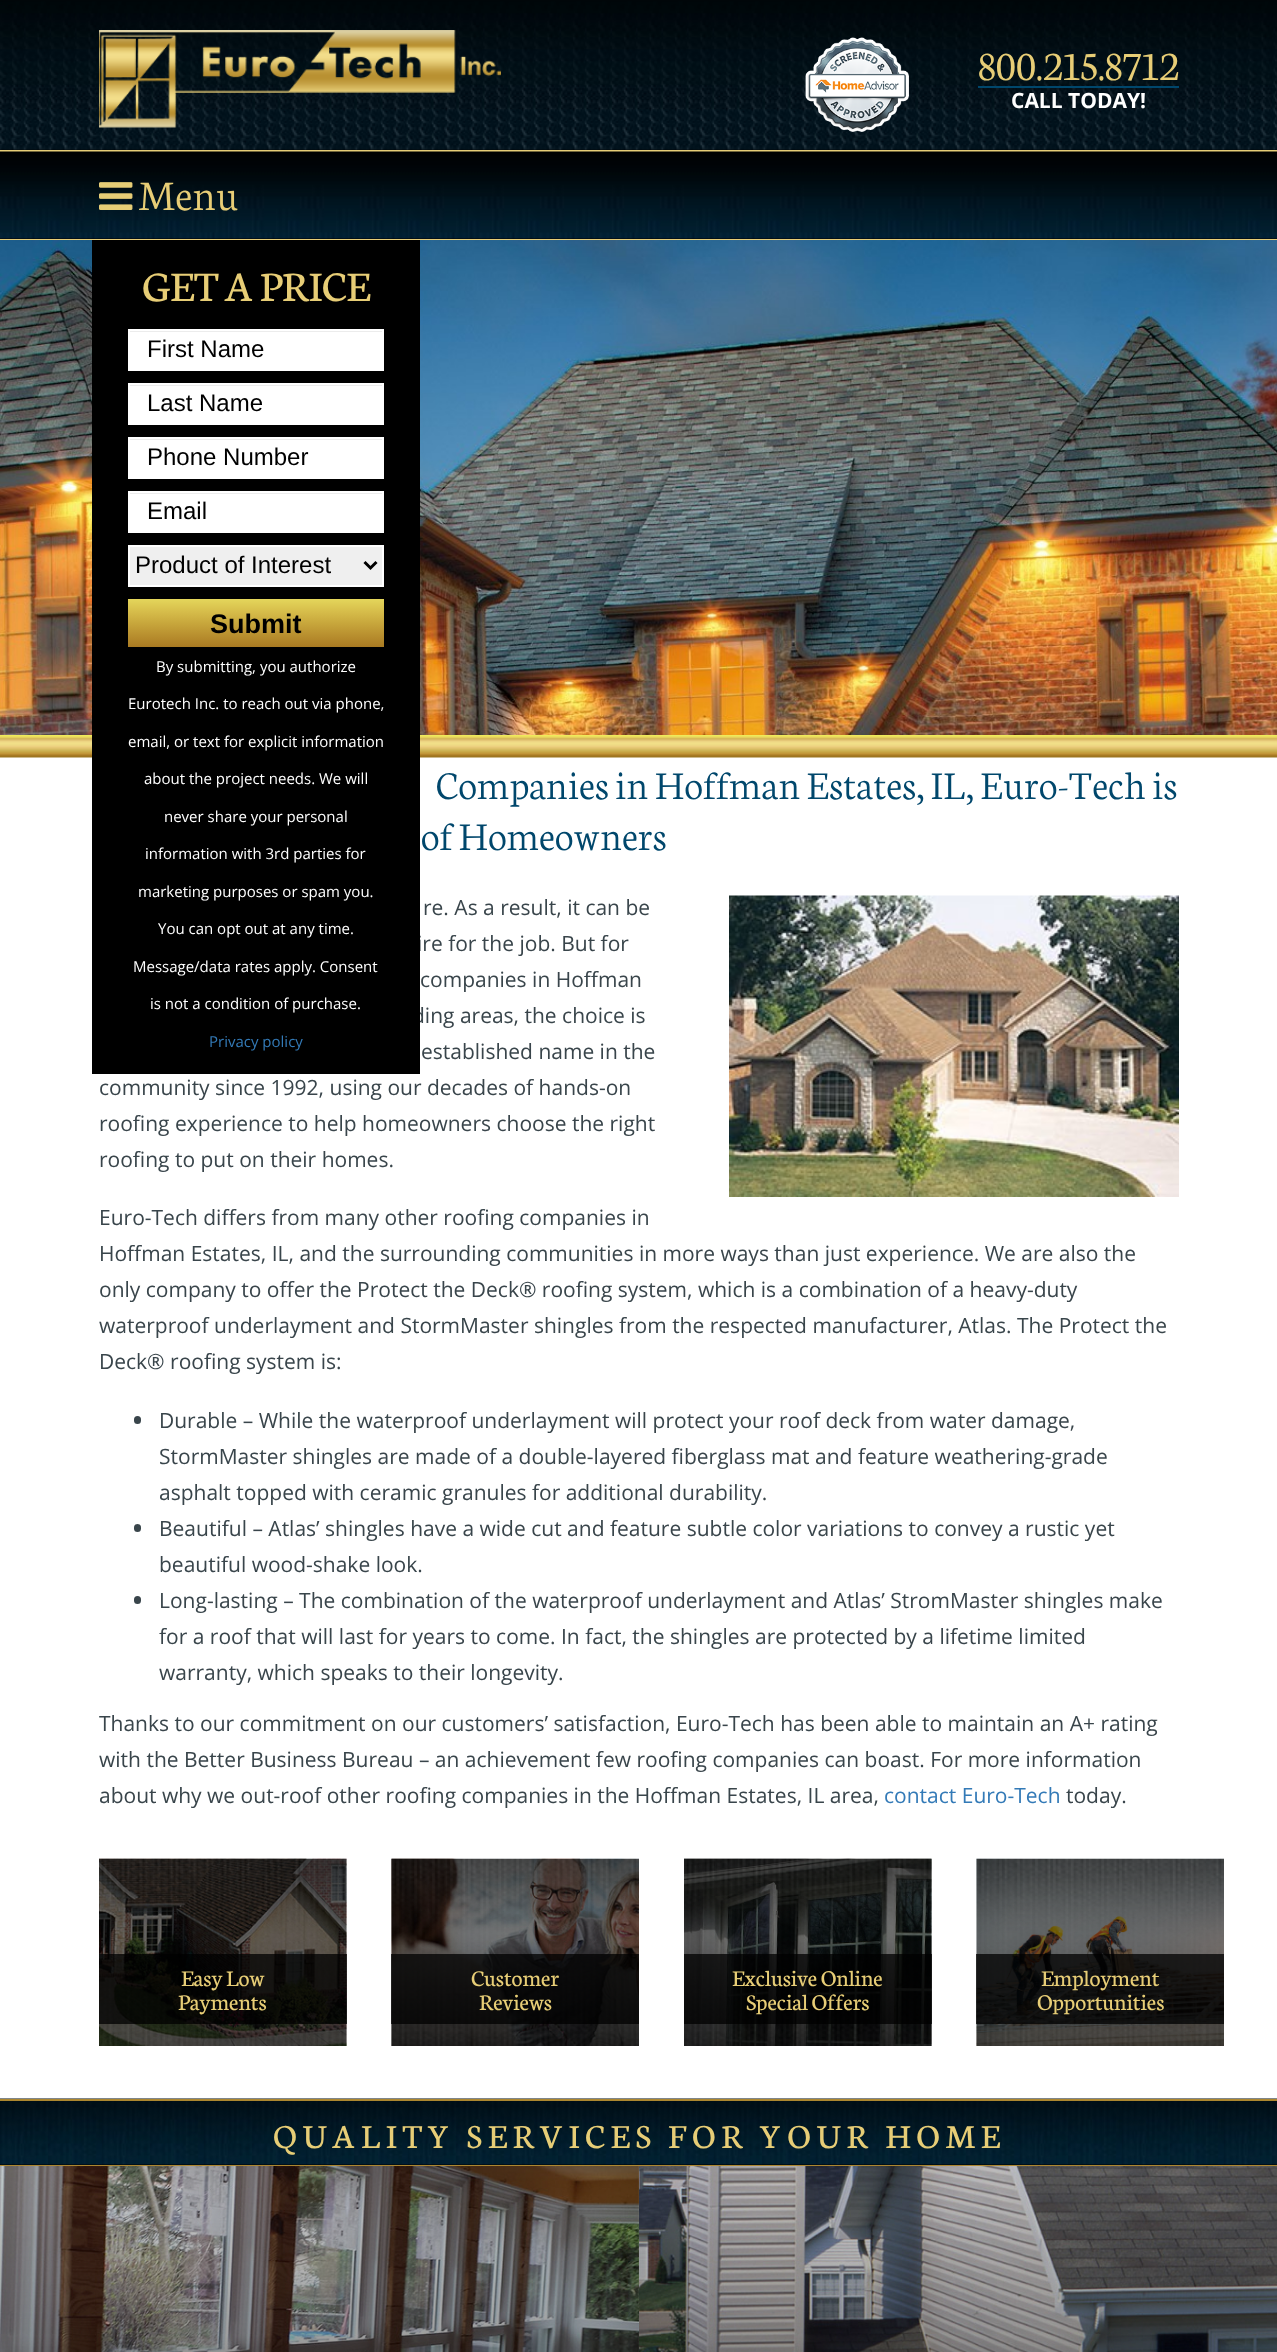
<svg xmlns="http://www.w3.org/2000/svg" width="1277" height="2352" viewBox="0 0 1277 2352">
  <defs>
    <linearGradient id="g1" gradientUnits="userSpaceOnUse" x1="256" y1="599" x2="256" y2="647"><stop offset="0" stop-color="#e4d65b"/><stop offset="0.25" stop-color="#d7be4b"/><stop offset="0.5" stop-color="#c8a73c"/><stop offset="0.75" stop-color="#b9902f"/><stop offset="1" stop-color="#a97a22"/></linearGradient>
  </defs>
  <rect width="100%" height="100%" fill="#fff"/>
  <image x="0" y="0" width="1277" height="150" href="img/1.png"/>
  <path d="M0 150h1277v2H0z" fill="#e7cd76"/>
  <image x="99" y="30" width="402" height="98" href="img/2.png"/>
  <image x="805" y="37" width="104" height="95" href="img/3.png"/>
  <path d="M978 86h201v2H978z" fill="#00476c"/>
  <path d="M0 238h1277v1H0z" fill="#000"/>
  <image x="0" y="151" width="1277" height="88" href="img/4.png"/>
  <path d="M0 239h1277v1H0z" fill="#e7cd76"/>
  <image x="99" y="182" width="34" height="28" href="img/5.png"/>
  <image x="0" y="735" width="1277" height="23" href="img/6.png"/>
  <image x="0" y="240" width="1277" height="495" href="img/7.png"/>
  <image x="729" y="895" width="450" height="302" href="img/8.png"/>
  <rect x="134" y="1416" width="7" height="8" rx="3.5" fill="#39454b"/>
  <rect x="134" y="1524" width="7" height="8" rx="3.5" fill="#39454b"/>
  <rect x="134" y="1596" width="7" height="8" rx="3.5" fill="#39454b"/>
  <image x="99" y="1858" width="248" height="188" href="img/9.png"/>
  <image x="99" y="1858" width="248" height="188" href="img/10.png"/>
  <path d="M99 1954h248v70H99z" fill="#000000bf"/>
  <image x="391" y="1858" width="248" height="188" href="img/11.png"/>
  <image x="391" y="1858" width="248" height="188" href="img/12.png"/>
  <path d="M391 1954h248v70H391z" fill="#000000bf"/>
  <image x="684" y="1858" width="248" height="188" href="img/13.png"/>
  <image x="684" y="1858" width="248" height="188" href="img/14.png"/>
  <path d="M684 1954h248v70H684z" fill="#000000bf"/>
  <image x="976" y="1858" width="248" height="188" href="img/15.png"/>
  <image x="976" y="1858" width="248" height="188" href="img/16.png"/>
  <path d="M976 1954h248v70H976z" fill="#000000bf"/>
  <path d="M0 2164h1277v1H0z" fill="#000"/>
  <image x="0" y="2098" width="1277" height="67" href="img/17.png"/>
  <path d="M0 2099h1277v2H0z" fill="#ad872f"/>
  <path d="M0 2165h1277v1H0z" fill="#ad872f"/>
  <image x="0" y="2166" width="639" height="186" href="img/18.png"/>
  <image x="0" y="2166" width="639" height="186" href="img/19.png"/>
  <image x="639" y="2166" width="638" height="186" href="img/20.png"/>
  <image x="639" y="2166" width="638" height="186" href="img/21.png"/>
  <text x="978" y="80" font-family="Neuton" font-size="45" font-weight="300" fill="#e7cd76">800.215.8712</text>
  <text x="1011" y="108" font-family="Open Sans" font-size="21" font-weight="bold" fill="#fff">CALL TODAY!</text>
  <text x="138" y="210" font-family="Neuton" font-size="45" font-weight="300" fill="#e7cd76">Menu</text>
  <g font-family="Neuton" font-size="42" font-weight="300" fill="#00476c">
    <text x="436" y="799">Companies in Hoffman Estates, IL, Euro-Tech is</text>
    <text x="421" y="850">of Homeowners</text>
  </g>
  <g font-family="Open Sans" font-size="21" fill="#39454b">
    <text x="423" y="915">re. As a result, it can be</text>
    <text x="417" y="951">ire for the job. But for</text>
    <text x="420" y="987">companies in Hoffman</text>
    <text x="412" y="1023">ding areas, the choice is</text>
  </g>
  <path d="M92 240h328v834H92z" fill="#000"/>
  <path d="M129 546h254v40H129z" fill="#efefef" stroke="#fff" stroke-width="2"/>
  <text x="135" y="573" font-family="Liberation Sans" font-size="24" fill="#000">Product of Interest</text>
  <path d="M364.5 562L370.5 568L376.5 562" fill="none" stroke="#000" stroke-width="3"/>
  <path d="M129 493h254v1H129z" fill="#ececec"/>
  <path d="M130 494h252v37H130z" fill="#fff"/>
  <path d="M129 492h254v40H129z" fill="none" stroke="#fff" stroke-width="2"/>
  <text x="147" y="519" font-family="Liberation Sans" font-size="24" fill="#000">Email</text>
  <path d="M129 439h254v1H129z" fill="#ececec"/>
  <path d="M130 440h252v37H130z" fill="#fff"/>
  <path d="M129 438h254v40H129z" fill="none" stroke="#fff" stroke-width="2"/>
  <text x="147" y="465" font-family="Liberation Sans" font-size="24" fill="#000">Phone Number</text>
  <path d="M129 385h254v1H129z" fill="#ececec"/>
  <path d="M130 386h252v37H130z" fill="#fff"/>
  <path d="M129 384h254v40H129z" fill="none" stroke="#fff" stroke-width="2"/>
  <text x="147" y="411" font-family="Liberation Sans" font-size="24" fill="#000">Last Name</text>
  <path d="M129 331h254v1H129z" fill="#ececec"/>
  <path d="M130 332h252v37H130z" fill="#fff"/>
  <path d="M129 330h254v40H129z" fill="none" stroke="#fff" stroke-width="2"/>
  <text x="147" y="357" font-family="Liberation Sans" font-size="24" fill="#000">First Name</text>
  <text x="209" y="1047" font-family="Open Sans" font-size="15" fill="#337ab7">Privacy policy</text>
  <g font-family="Open Sans" font-size="15" fill="#fff">
    <text x="150" y="1009">is not a condition of purchase.</text>
    <text x="133" y="972">Message/data rates apply. Consent</text>
    <text x="158" y="934">You can opt out at any time.</text>
    <text x="138" y="897">marketing purposes or spam you.</text>
    <text x="145" y="859">information with 3rd parties for</text>
    <text x="164" y="822">never share your personal</text>
    <text x="144" y="784">about the project needs. We will</text>
    <text x="128" y="747">email, or text for explicit information</text>
    <text x="128" y="709">Eurotech Inc. to reach out via phone,</text>
    <text x="156" y="672">By submitting, you authorize</text>
  </g>
  <path d="M128 599h256v48H128z" fill="url(#g1)"/>
  <text x="210" y="633" font-family="Liberation Sans" font-size="27" font-weight="bold" fill="#000">Submit</text>
  <text x="142" y="301" font-family="Neuton" font-size="45" fill="#e7cd76">GET A PRICE</text>
  <g font-family="Open Sans" font-size="21" fill="#39454b">
    <text x="421" y="1059">established name in the</text>
    <text x="99" y="1095">community since 1992, using our decades of hands-on</text>
    <text x="99" y="1131">roofing experience to help homeowners choose the right</text>
    <text x="99" y="1167">roofing to put on their homes.</text>
    <text x="99" y="1225">Euro-Tech differs from many other roofing companies in</text>
    <text x="99" y="1261">Hoffman Estates, IL, and the surrounding communities in more ways than just experience. We are also the</text>
    <text x="99" y="1297">only company to offer the Protect the Deck® roofing system, which is a combination of a heavy-duty</text>
    <text x="99" y="1333">waterproof underlayment and StormMaster shingles from the respected manufacturer, Atlas. The Protect the</text>
    <text x="99" y="1369">Deck® roofing system is:</text>
    <text x="159" y="1428">Durable – While the waterproof underlayment will protect your roof deck from water damage,</text>
    <text x="159" y="1464">StormMaster shingles are made of a double-layered fiberglass mat and feature weathering-grade</text>
    <text x="159" y="1500">asphalt topped with ceramic granules for additional durability.</text>
    <text x="159" y="1536">Beautiful – Atlas’ shingles have a wide cut and feature subtle color variations to convey a rustic yet</text>
    <text x="159" y="1572">beautiful wood-shake look.</text>
    <text x="159" y="1608">Long-lasting – The combination of the waterproof underlayment and Atlas’ StromMaster shingles make</text>
    <text x="159" y="1644">for a roof that will last for years to come. In fact, the shingles are protected by a lifetime limited</text>
    <text x="159" y="1680">warranty, which speaks to their longevity.</text>
    <text x="99" y="1731">Thanks to our commitment on our customers’ satisfaction, Euro-Tech has been able to maintain an A+ rating</text>
    <text x="99" y="1767">with the Better Business Bureau – an achievement few roofing companies can boast. For more information</text>
    <text x="99" y="1803">about why we out-roof other roofing companies in the Hoffman Estates, IL area,</text>
  </g>
  <text x="884" y="1803" font-family="Open Sans" font-size="21" fill="#337ab7">contact Euro-Tech</text>
  <text x="1066" y="1803" font-family="Open Sans" font-size="21" fill="#39454b">today.</text>
  <g font-family="Neuton" font-size="24" fill="#e7cd76">
    <text x="181" y="1986">Easy Low</text>
    <text x="178" y="2010">Payments</text>
    <text x="471" y="1986">Customer</text>
    <text x="479" y="2010">Reviews</text>
    <text x="732" y="1986">Exclusive Online</text>
    <text x="746" y="2010">Special Offers</text>
    <text x="1041" y="1986">Employment</text>
    <text x="1037" y="2010">Opportunities</text>
  </g>
  <text x="273" y="2148" font-family="Neuton" font-size="36" letter-spacing="6" fill="#e7cd76">QUALITY SERVICES FOR YOUR HOME</text>
</svg>
